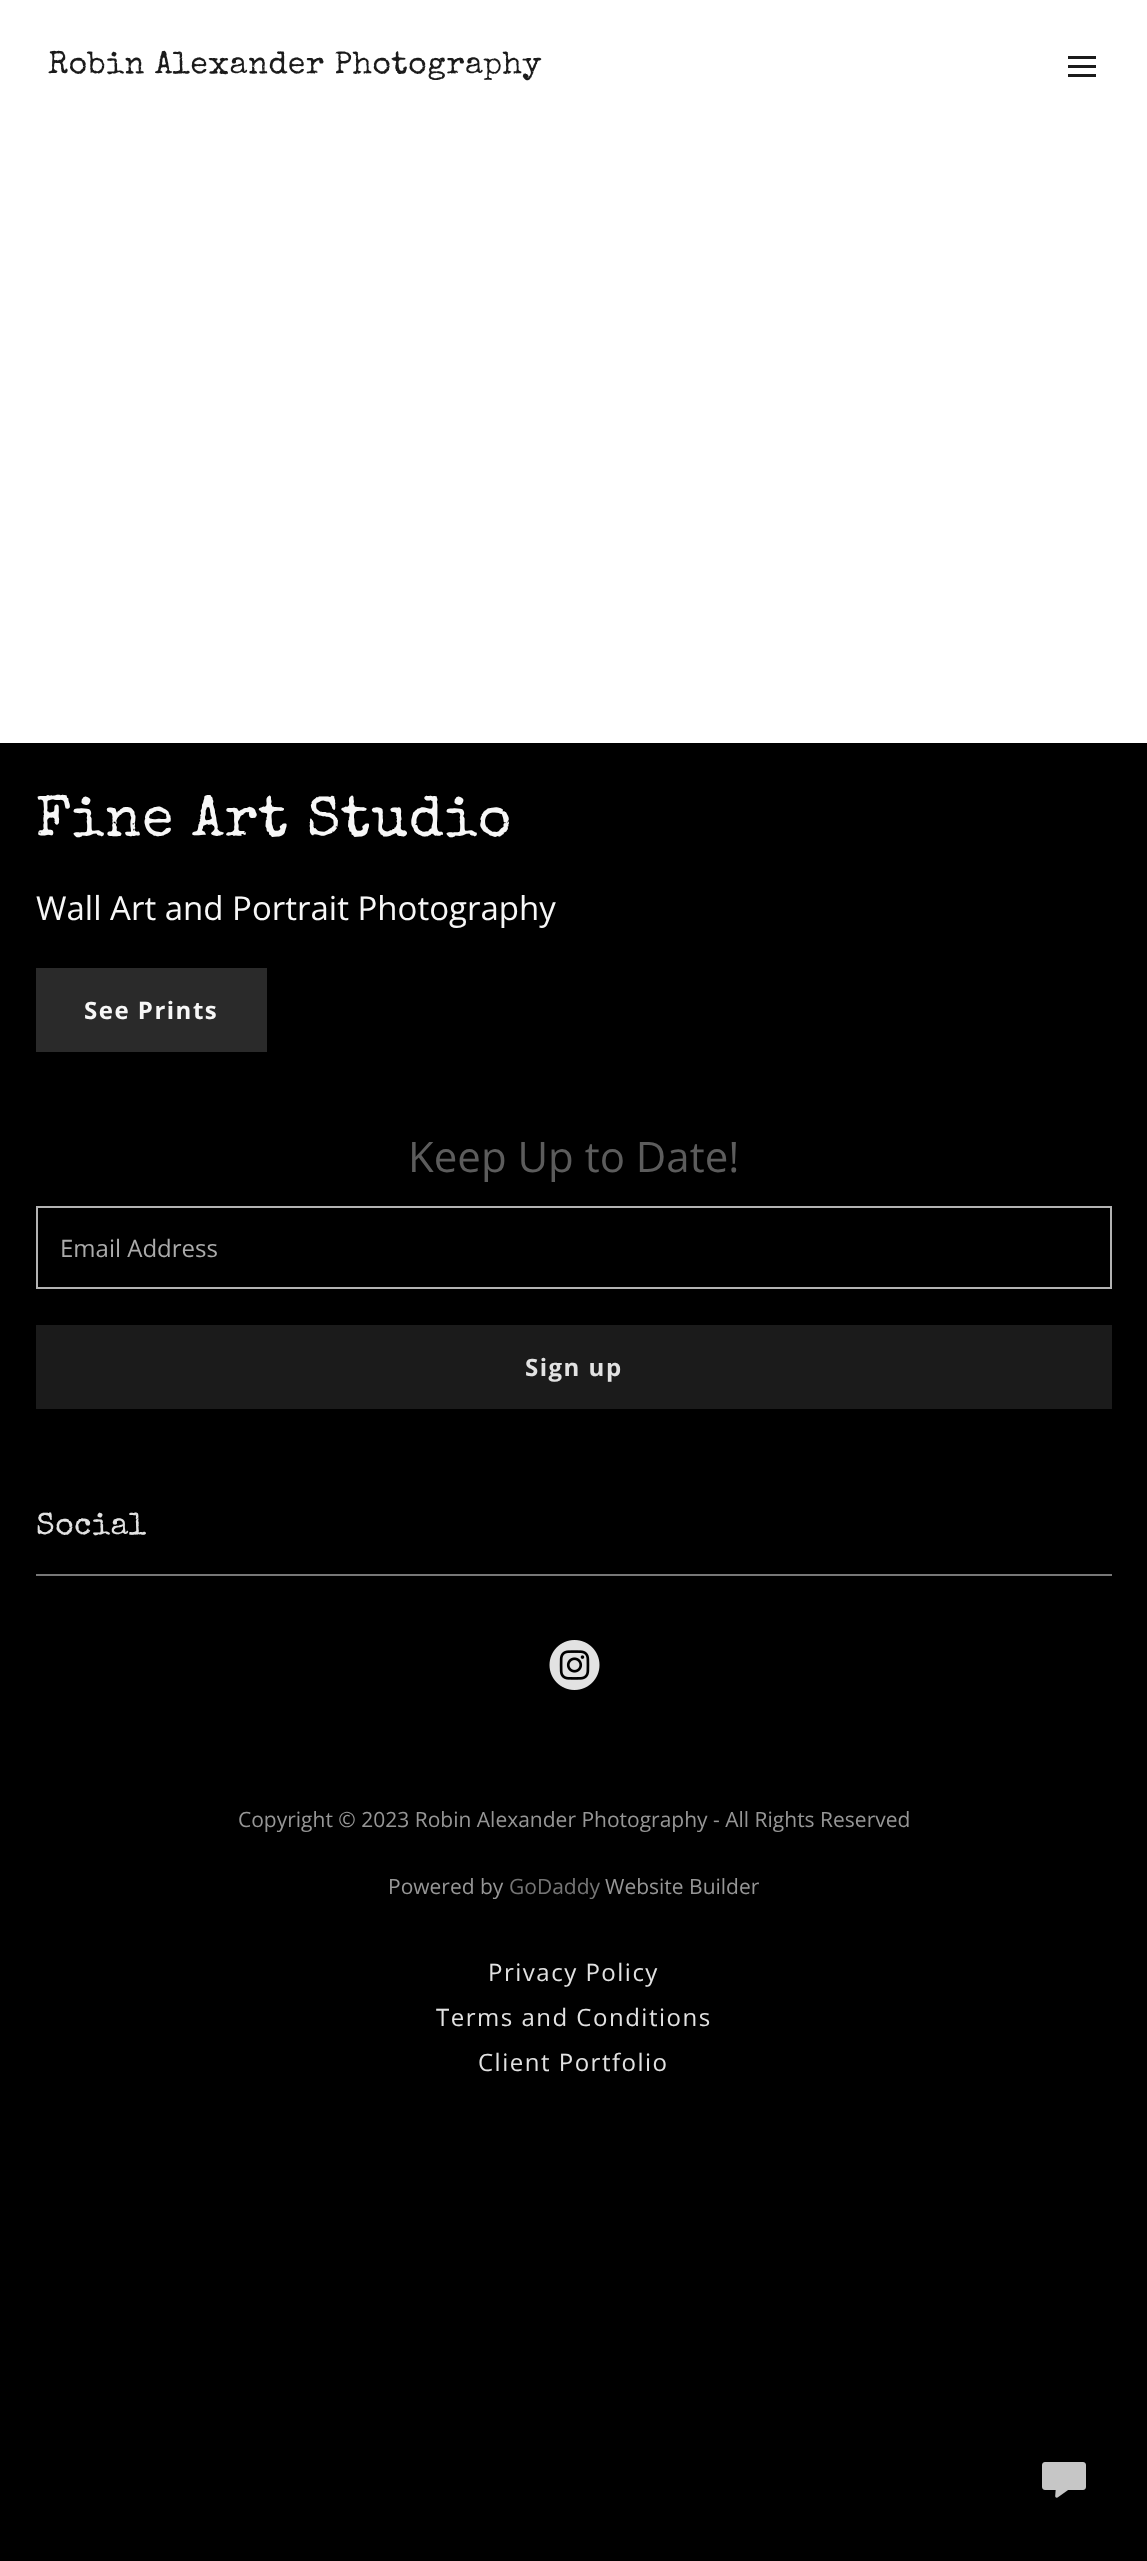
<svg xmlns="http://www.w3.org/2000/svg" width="1147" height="2561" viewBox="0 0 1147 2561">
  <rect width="100%" height="100%" fill="#000"/>
  <path d="M0 0h1147v743H0z" fill="#fff"/>
  <path d="M1068 56h28v3H1068z" fill="#1b1b1b"/>
  <path d="M1068 65h28v3H1068z" fill="#1b1b1b"/>
  <path d="M1068 74h28v3H1068z" fill="#1b1b1b"/>
  <path d="M36 968h231v84H36z" fill="#2a2a2a"/>
  <path d="M37 1207h1074v81H37z" fill="none" stroke="#b3b3b3" stroke-width="2"/>
  <path d="M36 1325h1076v84H36z" fill="#1b1b1b"/>
  <path d="M36 1574h1076v2H36z" fill="#777"/>
  <image x="549" y="1640" width="51" height="50" href="img/1.png"/>
  <image x="1042" y="2462" width="44" height="36" href="img/2.png"/>
  <text x="48" y="73" font-family="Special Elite" font-size="31.5" letter-spacing="0.6" fill="#1b1b1b">Robin Alexander Photography</text>
  <text x="36" y="835" font-family="Special Elite" font-size="57" letter-spacing="1.1" fill="#f7f7f7">Fine Art Studio</text>
  <text x="36" y="920" font-family="Open Sans" font-size="33" fill="#f7f7f7">Wall Art and Portrait Photography</text>
  <text x="84" y="1019" font-family="Open Sans" font-size="24" font-weight="bold" letter-spacing="1.5" fill="#f7f7f7">See Prints</text>
  <text x="408" y="1172" font-family="Open Sans" font-size="42" fill="#5c5c5c">Keep Up to Date!</text>
  <text x="60" y="1257" font-family="Open Sans" font-size="24" fill="#ababab">Email Address</text>
  <text x="525" y="1376" font-family="Open Sans" font-size="24" font-weight="bold" letter-spacing="1.5" fill="#e2e2e2">Sign up</text>
  <text x="36" y="1534" font-family="Special Elite" font-size="31.5" letter-spacing="0.6" fill="#e2e2e2">Social</text>
  <g font-family="Open Sans" font-size="21" fill="#969696">
    <text x="238" y="1827">Copyright © 2023 Robin Alexander Photography - All Rights Reserved</text>
    <text x="388" y="1894">Powered by</text>
  </g>
  <text x="509" y="1894" font-family="Open Sans" font-size="21" fill="#757575">GoDaddy</text>
  <text x="605" y="1894" font-family="Open Sans" font-size="21" fill="#969696">Website Builder</text>
  <g font-family="Open Sans" font-size="24" letter-spacing="1.5" fill="#e2e2e2">
    <text x="488" y="1981">Privacy Policy</text>
    <text x="436" y="2026">Terms and Conditions</text>
    <text x="478" y="2071">Client Portfolio</text>
  </g>
</svg>
